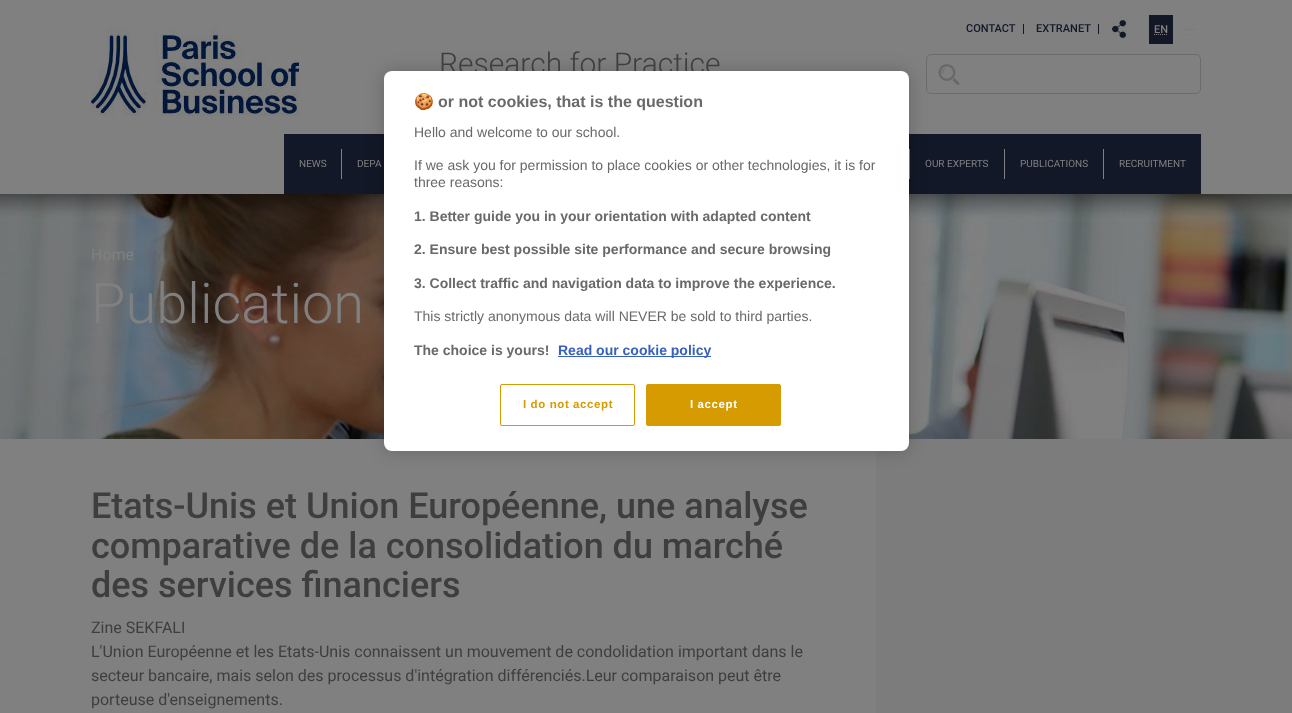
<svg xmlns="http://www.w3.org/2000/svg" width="1292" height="713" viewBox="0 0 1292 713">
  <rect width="100%" height="100%" fill="#808080"/>
  <image x="91" y="28" width="208" height="88" href="img/1.png"/>
  <path d="M1023 24h1v10H1023z" fill="#131828"/>
  <path d="M1098 24h1v10H1098z" fill="#131828"/>
  <image x="1111" y="20" width="16" height="18" href="img/2.png"/>
  <path d="M1149 15h24v29H1149z" fill="#131827"/>
  <path d="M1154 34.5H1168" fill="none" stroke="#808080" stroke-dasharray="1 1"/>
  <path d="M1183 29h13v1H1183z" fill="#7a7a7a"/>
  <path d="M1183 34.5H1196" fill="none" stroke="#7a7a7a" stroke-dasharray="1 1"/>
  <rect x="926.5" y="54.5" width="274" height="39" rx="4.5" fill="none" stroke="#6c6c6c"/>
  <image x="938" y="64" width="22" height="21" href="img/3.png"/>
  <path d="M284 134h100v60H284z" fill="#131828"/>
  <path d="M341 149h1v30H341z" fill="#808080"/>
  <path d="M909 134h292v60H909z" fill="#131828"/>
  <path d="M909 149h1v30H909z" fill="#808080"/>
  <path d="M1004 149h1v30H1004z" fill="#808080"/>
  <path d="M1103 149h1v30H1103z" fill="#808080"/>
  <image x="0" y="194" width="1292" height="245" href="img/4.png"/>
  <path d="M876 439h416v274H876z" fill="#7c7c7c"/>
  <rect x="384" y="71" width="525" height="380" rx="8" fill="#00000033" filter="blur(9px)"/>
  <g font-family="Roboto" font-size="11" font-weight="500" fill="#131828">
    <text x="966" y="32">CONTACT</text>
    <text x="1036" y="32">EXTRANET</text>
  </g>
  <text x="1154" y="33" font-family="Roboto" font-size="11" font-weight="500" fill="#808080">EN</text>
  <g font-family="Roboto" font-size="10" fill="#808080">
    <text x="299" y="167">NEWS</text>
    <text x="357" y="167">DEPA</text>
    <text x="925" y="167">OUR EXPERTS</text>
    <text x="1020" y="167">PUBLICATIONS</text>
    <text x="1119" y="167">RECRUITMENT</text>
  </g>
  <text x="439" y="74" font-family="Roboto" font-size="30" font-weight="300" fill="#3e3e3f">Research for Practice</text>
  <text x="91" y="260" font-family="Roboto" font-size="16" fill="#808080">Home</text>
  <text x="91" y="323" font-family="Roboto" font-size="56" font-weight="300" fill="#808080">Publication</text>
  <g font-family="Roboto" font-size="36" font-weight="500" fill="#3e3e3f">
    <text x="91" y="518">Etats-Unis et Union Européenne, une analyse</text>
    <text x="91" y="558">comparative de la consolidation du marché</text>
    <text x="91" y="597">des services financiers</text>
  </g>
  <g font-family="Roboto" font-size="16" fill="#3e3e3f">
    <text x="91" y="633">Zine SEKFALI</text>
    <text x="91" y="657">L'Union Européenne et les Etats-Unis connaissent un mouvement de condolidation important dans le</text>
    <text x="91" y="681">secteur bancaire, mais selon des processus d'intégration différenciés.Leur comparaison peut être</text>
    <text x="91" y="705">porteuse d'enseignements.</text>
  </g>
  <rect x="384" y="71" width="525" height="380" rx="8" fill="#fff"/>
  <text x="414" y="107" font-family="Noto Color Emoji" font-size="16" font-weight="bold" fill="#696969">🍪</text>
  <text x="438" y="107" font-family="Liberation Sans" font-size="16" font-weight="bold" fill="#696969">or not cookies, that is the question</text>
  <g font-family="Liberation Sans" font-size="14" fill="#696969">
    <text x="414" y="137">Hello and welcome to our school.</text>
    <text x="414" y="170">If we ask you for permission to place cookies or other technologies, it is for</text>
    <text x="414" y="187">three reasons:</text>
  </g>
  <g font-family="Liberation Sans" font-size="14" font-weight="bold" fill="#696969">
    <text x="414" y="221">1. Better guide you in your orientation with adapted content</text>
    <text x="414" y="254">2. Ensure best possible site performance and secure browsing</text>
    <text x="414" y="288">3. Collect traffic and navigation data to improve the experience.</text>
  </g>
  <text x="414" y="321" font-family="Liberation Sans" font-size="14" fill="#696969">This strictly anonymous data will NEVER be sold to third parties.</text>
  <text x="414" y="355" font-family="Liberation Sans" font-size="14" font-weight="bold" fill="#696969">The choice is yours!</text>
  <path d="M558 356h153v1H558z" fill="#3860be"/>
  <text x="558" y="355" font-family="Liberation Sans" font-size="14" font-weight="bold" fill="#3860be">Read our cookie policy</text>
  <rect x="500.5" y="384.5" width="134" height="41" rx="1.5" fill="none" stroke="#d69b00"/>
  <text x="523" y="408" font-family="Liberation Sans" font-size="11.5" font-weight="bold" letter-spacing="0.6" fill="#d69b00">I do not accept</text>
  <rect x="646.5" y="384.5" width="134" height="41" rx="1.5" fill="#d69b00" stroke="#d69b00"/>
  <text x="690" y="408" font-family="Liberation Sans" font-size="11.5" font-weight="bold" letter-spacing="0.6" fill="#fff">I accept</text>
</svg>
